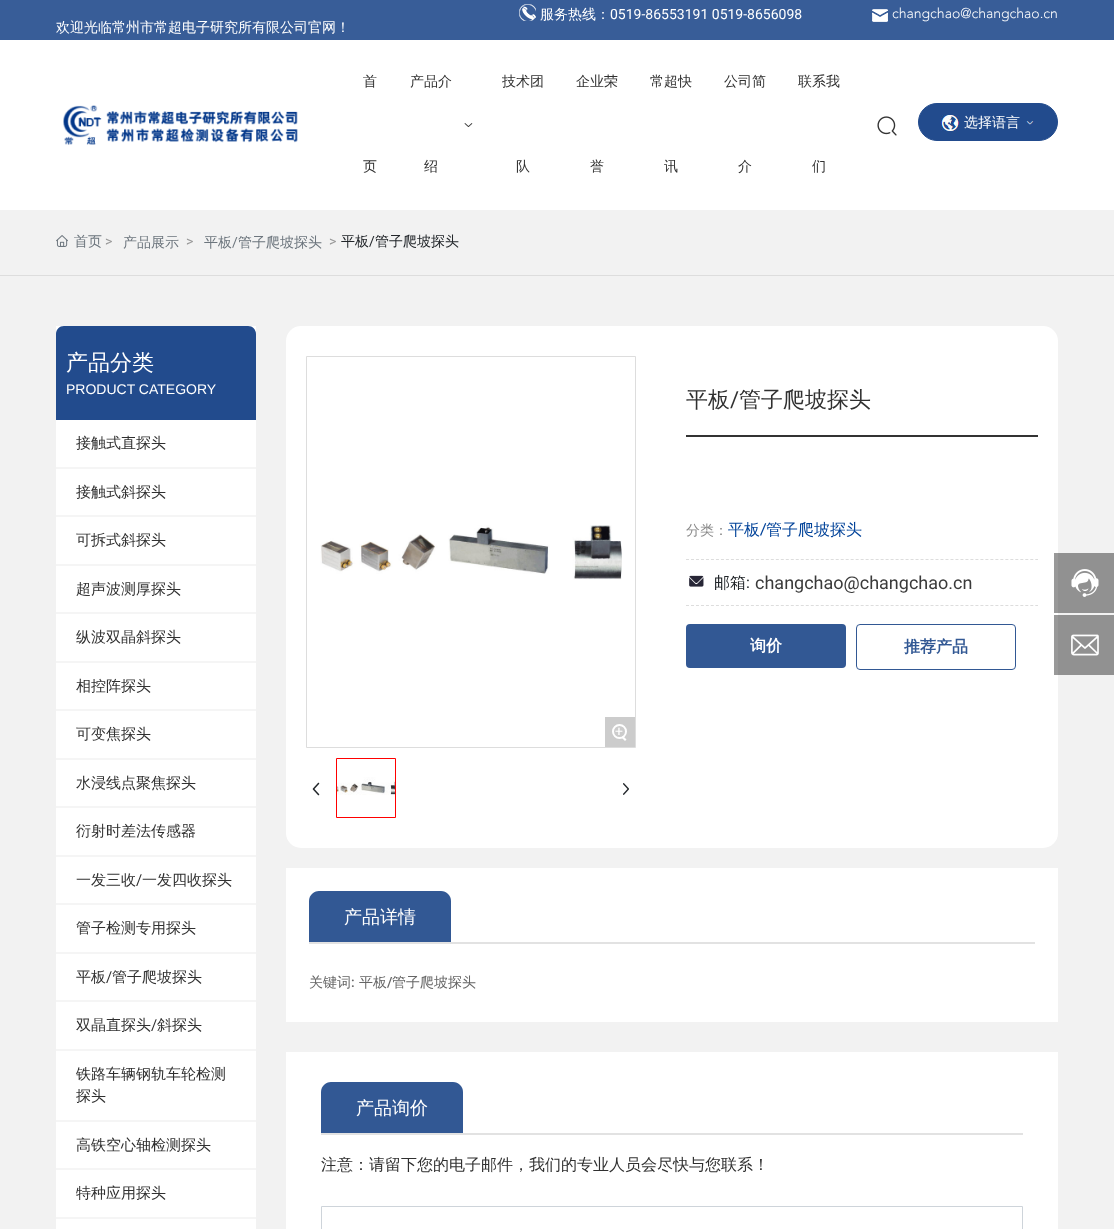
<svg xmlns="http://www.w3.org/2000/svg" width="1114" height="1229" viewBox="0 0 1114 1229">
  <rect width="100%" height="100%" fill="#fff"/>
  <path d="M0 0h1114v40H0z" fill="#385d98"/>
  <image x="519" y="4" width="17" height="17" href="img/1.png"/>
  <image x="872" y="9" width="16" height="13" href="img/2.png"/>
  <image x="63" y="105" width="235" height="40" href="img/3.png"/>
  <image x="464" y="123" width="9" height="4" href="img/4.png"/>
  <image x="877" y="116" width="20" height="20" href="img/5.png"/>
  <rect x="918.5" y="103.5" width="139" height="37" rx="18.5" fill="#224b8d" stroke="#224b8d"/>
  <image x="941" y="115" width="18" height="16" href="img/6.png"/>
  <image x="1026" y="121" width="8" height="4" href="img/7.png"/>
  <path d="M0 210h1114v65H0z" fill="#f2f2f2"/>
  <path d="M0 275h1114v1H0z" fill="#ddd"/>
  <image x="56" y="235" width="12" height="12" href="img/8.png"/>
  <path d="M0 276h1114v953H0z" fill="#f2f2f2"/>
  <path d="M1058 615h56v60H1058z" fill="#919191"/>
  <path d="M1058 553h56v60H1058z" fill="#919191"/>
  <path d="M56 326h200v903H56z" fill="#fff"/>
  <path d="M64 326H248C252.5 326 256 329.5 256 334V420H56V334C56 329.5 59.5 326 64 326Z" fill="#224b8d"/>
  <path d="M56 467h200v2H56z" fill="#f5f5f5"/>
  <path d="M56 515h200v2H56z" fill="#f5f5f5"/>
  <path d="M56 564h200v2H56z" fill="#f5f5f5"/>
  <path d="M56 612h200v2H56z" fill="#f5f5f5"/>
  <path d="M56 661h200v2H56z" fill="#f5f5f5"/>
  <path d="M56 709h200v2H56z" fill="#f5f5f5"/>
  <path d="M56 758h200v2H56z" fill="#f5f5f5"/>
  <path d="M56 806h200v2H56z" fill="#f5f5f5"/>
  <path d="M56 855h200v2H56z" fill="#f5f5f5"/>
  <path d="M56 903h200v2H56z" fill="#f5f5f5"/>
  <path d="M56 952h200v2H56z" fill="#f5f5f5"/>
  <path d="M56 1000h200v2H56z" fill="#f5f5f5"/>
  <path d="M56 1049h200v2H56z" fill="#f5f5f5"/>
  <path d="M56 1120h200v2H56z" fill="#f5f5f5"/>
  <path d="M56 1168h200v2H56z" fill="#f5f5f5"/>
  <path d="M56 1217h200v2H56z" fill="#f5f5f5"/>
  <rect x="286" y="326" width="772" height="522" rx="15" fill="#fff"/>
  <path d="M1054 615h4v60H1054z" fill="#999"/>
  <path d="M1054 553h4v60H1054z" fill="#999"/>
  <path d="M686 435h352v2H686z" fill="#333"/>
  <path d="M686 559.5H1038" fill="none" stroke="#ddd" stroke-dasharray="3 1.99"/>
  <path d="M686 605.5H1038" fill="none" stroke="#ddd" stroke-dasharray="3 1.99"/>
  <image x="689" y="575" width="15" height="12" href="img/9.png"/>
  <rect x="686" y="624" width="160" height="44" rx="4" fill="#325894"/>
  <rect x="856.5" y="624.5" width="159" height="45" rx="3.5" fill="none" stroke="#325894"/>
  <path d="M306.5 356.5h329v391H306.5z" fill="none" stroke="#ddd"/>
  <image x="320" y="525" width="302" height="55" href="img/10.png"/>
  <path d="M605 717h30v30H605z" fill="#ccc"/>
  <circle cx="619.5" cy="731.5" r="6.5" fill="none" stroke="#fff" stroke-width="2"/>
  <path d="M623 736L626.5 739.5L625 741L621.5 737.5Z" fill="#fff"/>
  <path d="M336.5 758.5h59v59H336.5z" fill="none" stroke="#f00"/>
  <image x="337" y="777" width="58" height="18" href="img/11.png"/>
  <image x="312" y="782" width="8" height="14" href="img/12.png"/>
  <image x="623" y="783" width="6" height="12" href="img/13.png"/>
  <path d="M286 868h772v154H286z" fill="#fff"/>
  <path d="M309 942h726v2H309z" fill="#e2e2e2"/>
  <path d="M319 891H441C446.5 891 451 895.5 451 901V942H309V901C309 895.5 313.5 891 319 891Z" fill="#325894"/>
  <path d="M286 1052h772v177H286z" fill="#fff"/>
  <path d="M321 1133h702v2H321z" fill="#e2e2e2"/>
  <path d="M331 1082H453C458.5 1082 463 1086.5 463 1092V1133H321V1092C321 1086.5 325.5 1082 331 1082Z" fill="#325894"/>
  <path d="M321.5 1206.5h701v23H321.5z" fill="none" stroke="#ced4da"/>
  <image x="1071" y="569" width="28" height="28" href="img/14.png"/>
  <image x="1071" y="634" width="28" height="22" href="img/15.png"/>
  <text x="540" y="19" font-family="WenQuanYi Zen Hei" font-size="14" font-weight="500" fill="#fff">服务热线：</text>
  <text x="610" y="19" font-family="Roboto" font-size="14" fill="#fff">0519-86553191 0519-8656098</text>
  <text x="892" y="18" font-family="Avenir" font-size="14" font-weight="300" fill="#fff">changchao@changchao.cn</text>
  <text x="56" y="32" font-family="WenQuanYi Zen Hei" font-size="14" font-weight="500" fill="#fff">欢迎光临常州市常超电子研究所有限公司官网！</text>
  <g font-family="WenQuanYi Zen Hei" font-size="14" font-weight="500" fill="#303030">
    <text x="363" y="86">首</text>
    <text x="363" y="171">页</text>
    <text x="410" y="86">产品介</text>
    <text x="424" y="171">绍</text>
    <text x="502" y="86">技术团</text>
    <text x="516" y="171">队</text>
    <text x="576" y="86">企业荣</text>
    <text x="590" y="171">誉</text>
    <text x="650" y="86">常超快</text>
    <text x="664" y="171">讯</text>
    <text x="724" y="86">公司简</text>
    <text x="738" y="171">介</text>
    <text x="798" y="86">联系我</text>
    <text x="812" y="171">们</text>
  </g>
  <text x="964" y="127" font-family="WenQuanYi Zen Hei" font-size="14" font-weight="500" fill="#fff">选择语言</text>
  <text x="74" y="246" font-family="WenQuanYi Zen Hei" font-size="14" font-weight="500" fill="#6c757d">首页</text>
  <text x="105" y="246" font-family="Roboto" font-size="14" fill="#999">&gt;</text>
  <text x="123" y="247" font-family="WenQuanYi Zen Hei" font-size="14" font-weight="500" fill="#6c757d">产品展示</text>
  <text x="186" y="246" font-family="Roboto" font-size="14" fill="#999">&gt;</text>
  <text x="204" y="247" font-family="WenQuanYi Zen Hei" font-size="14" font-weight="500" fill="#6c757d">平板</text>
  <text x="232" y="247" font-family="Roboto" font-size="14" fill="#6c757d">/</text>
  <text x="238" y="247" font-family="WenQuanYi Zen Hei" font-size="14" font-weight="500" fill="#6c757d">管子爬坡探头</text>
  <text x="329" y="246" font-family="Roboto" font-size="14" fill="#999">&gt;</text>
  <text x="341" y="246" font-family="WenQuanYi Zen Hei" font-size="14" font-weight="500" fill="#212529">平板</text>
  <text x="369" y="246" font-family="Roboto" font-size="14" fill="#212529">/</text>
  <text x="375" y="246" font-family="WenQuanYi Zen Hei" font-size="14" font-weight="500" fill="#212529">管子爬坡探头</text>
  <text x="66" y="370" font-family="WenQuanYi Zen Hei" font-size="22" font-weight="500" fill="#fff">产品分类</text>
  <text x="66" y="394" font-family="Liberation Sans" font-size="14" fill="#fff">PRODUCT CATEGORY</text>
  <g font-family="WenQuanYi Zen Hei" font-size="15" font-weight="500" fill="#303030">
    <text x="76" y="448">接触式直探头</text>
    <text x="76" y="497">接触式斜探头</text>
    <text x="76" y="545">可拆式斜探头</text>
    <text x="76" y="594">超声波测厚探头</text>
    <text x="76" y="642">纵波双晶斜探头</text>
    <text x="76" y="691">相控阵探头</text>
    <text x="76" y="739">可变焦探头</text>
    <text x="76" y="788">水浸线点聚焦探头</text>
    <text x="76" y="836">衍射时差法传感器</text>
    <text x="76" y="885">一发三收</text>
  </g>
  <text x="136" y="885" font-family="Roboto" font-size="15" fill="#303030">/</text>
  <g font-family="WenQuanYi Zen Hei" font-size="15" font-weight="500" fill="#303030">
    <text x="142" y="885">一发四收探头</text>
    <text x="76" y="933">管子检测专用探头</text>
    <text x="76" y="982">平板</text>
  </g>
  <text x="106" y="982" font-family="Roboto" font-size="15" fill="#303030">/</text>
  <g font-family="WenQuanYi Zen Hei" font-size="15" font-weight="500" fill="#303030">
    <text x="112" y="982">管子爬坡探头</text>
    <text x="76" y="1030">双晶直探头</text>
  </g>
  <text x="151" y="1030" font-family="Roboto" font-size="15" fill="#303030">/</text>
  <g font-family="WenQuanYi Zen Hei" font-size="15" font-weight="500" fill="#303030">
    <text x="157" y="1030">斜探头</text>
    <text x="76" y="1079">铁路车辆钢轨车轮检测</text>
    <text x="76" y="1101">探头</text>
    <text x="76" y="1150">高铁空心轴检测探头</text>
    <text x="76" y="1198">特种应用探头</text>
  </g>
  <text x="686" y="407" font-family="WenQuanYi Zen Hei" font-size="22" font-weight="500" fill="#303030">平板</text>
  <text x="730" y="407" font-family="Roboto" font-size="22" fill="#303030">/</text>
  <text x="739" y="407" font-family="WenQuanYi Zen Hei" font-size="22" font-weight="500" fill="#303030">管子爬坡探头</text>
  <text x="686" y="535" font-family="WenQuanYi Zen Hei" font-size="14" font-weight="500" fill="#888">分类：</text>
  <text x="728" y="535" font-family="WenQuanYi Zen Hei" font-size="16" font-weight="500" fill="#004299">平板</text>
  <text x="760" y="535" font-family="Avenir" font-size="16" font-weight="500" fill="#004299">/</text>
  <text x="766" y="535" font-family="WenQuanYi Zen Hei" font-size="16" font-weight="500" fill="#004299">管子爬坡探头</text>
  <text x="714" y="588" font-family="WenQuanYi Zen Hei" font-size="16" font-weight="500" fill="#212529">邮箱</text>
  <text x="746" y="588" font-family="Roboto" font-size="16" fill="#212529">:</text>
  <text x="755" y="589" font-family="Roboto" font-size="18" fill="#3a3a3a">changchao@changchao.cn</text>
  <text x="750" y="651" font-family="WenQuanYi Zen Hei" font-size="16" font-weight="bold" fill="#fff">询价</text>
  <text x="904" y="652" font-family="WenQuanYi Zen Hei" font-size="16" font-weight="bold" fill="#325894">推荐产品</text>
  <text x="615" y="736" font-family="Roboto" font-size="14" fill="#fff">+</text>
  <text x="344" y="923" font-family="WenQuanYi Zen Hei" font-size="18" font-weight="500" fill="#fff">产品详情</text>
  <text x="309" y="987" font-family="WenQuanYi Zen Hei" font-size="14" font-weight="500" fill="#666">关键词</text>
  <text x="351" y="987" font-family="Roboto" font-size="14" font-weight="500" fill="#666">:</text>
  <text x="359" y="987" font-family="WenQuanYi Zen Hei" font-size="14" font-weight="500" fill="#666">平板</text>
  <text x="387" y="987" font-family="Roboto" font-size="14" font-weight="500" fill="#666">/</text>
  <text x="392" y="987" font-family="WenQuanYi Zen Hei" font-size="14" font-weight="500" fill="#666">管子爬坡探头</text>
  <text x="356" y="1114" font-family="WenQuanYi Zen Hei" font-size="18" font-weight="500" fill="#fff">产品询价</text>
  <text x="321" y="1170" font-family="WenQuanYi Zen Hei" font-size="16" font-weight="500" fill="#303030">注意：请留下您的电子邮件，我们的专业人员会尽快与您联系！</text>
</svg>
